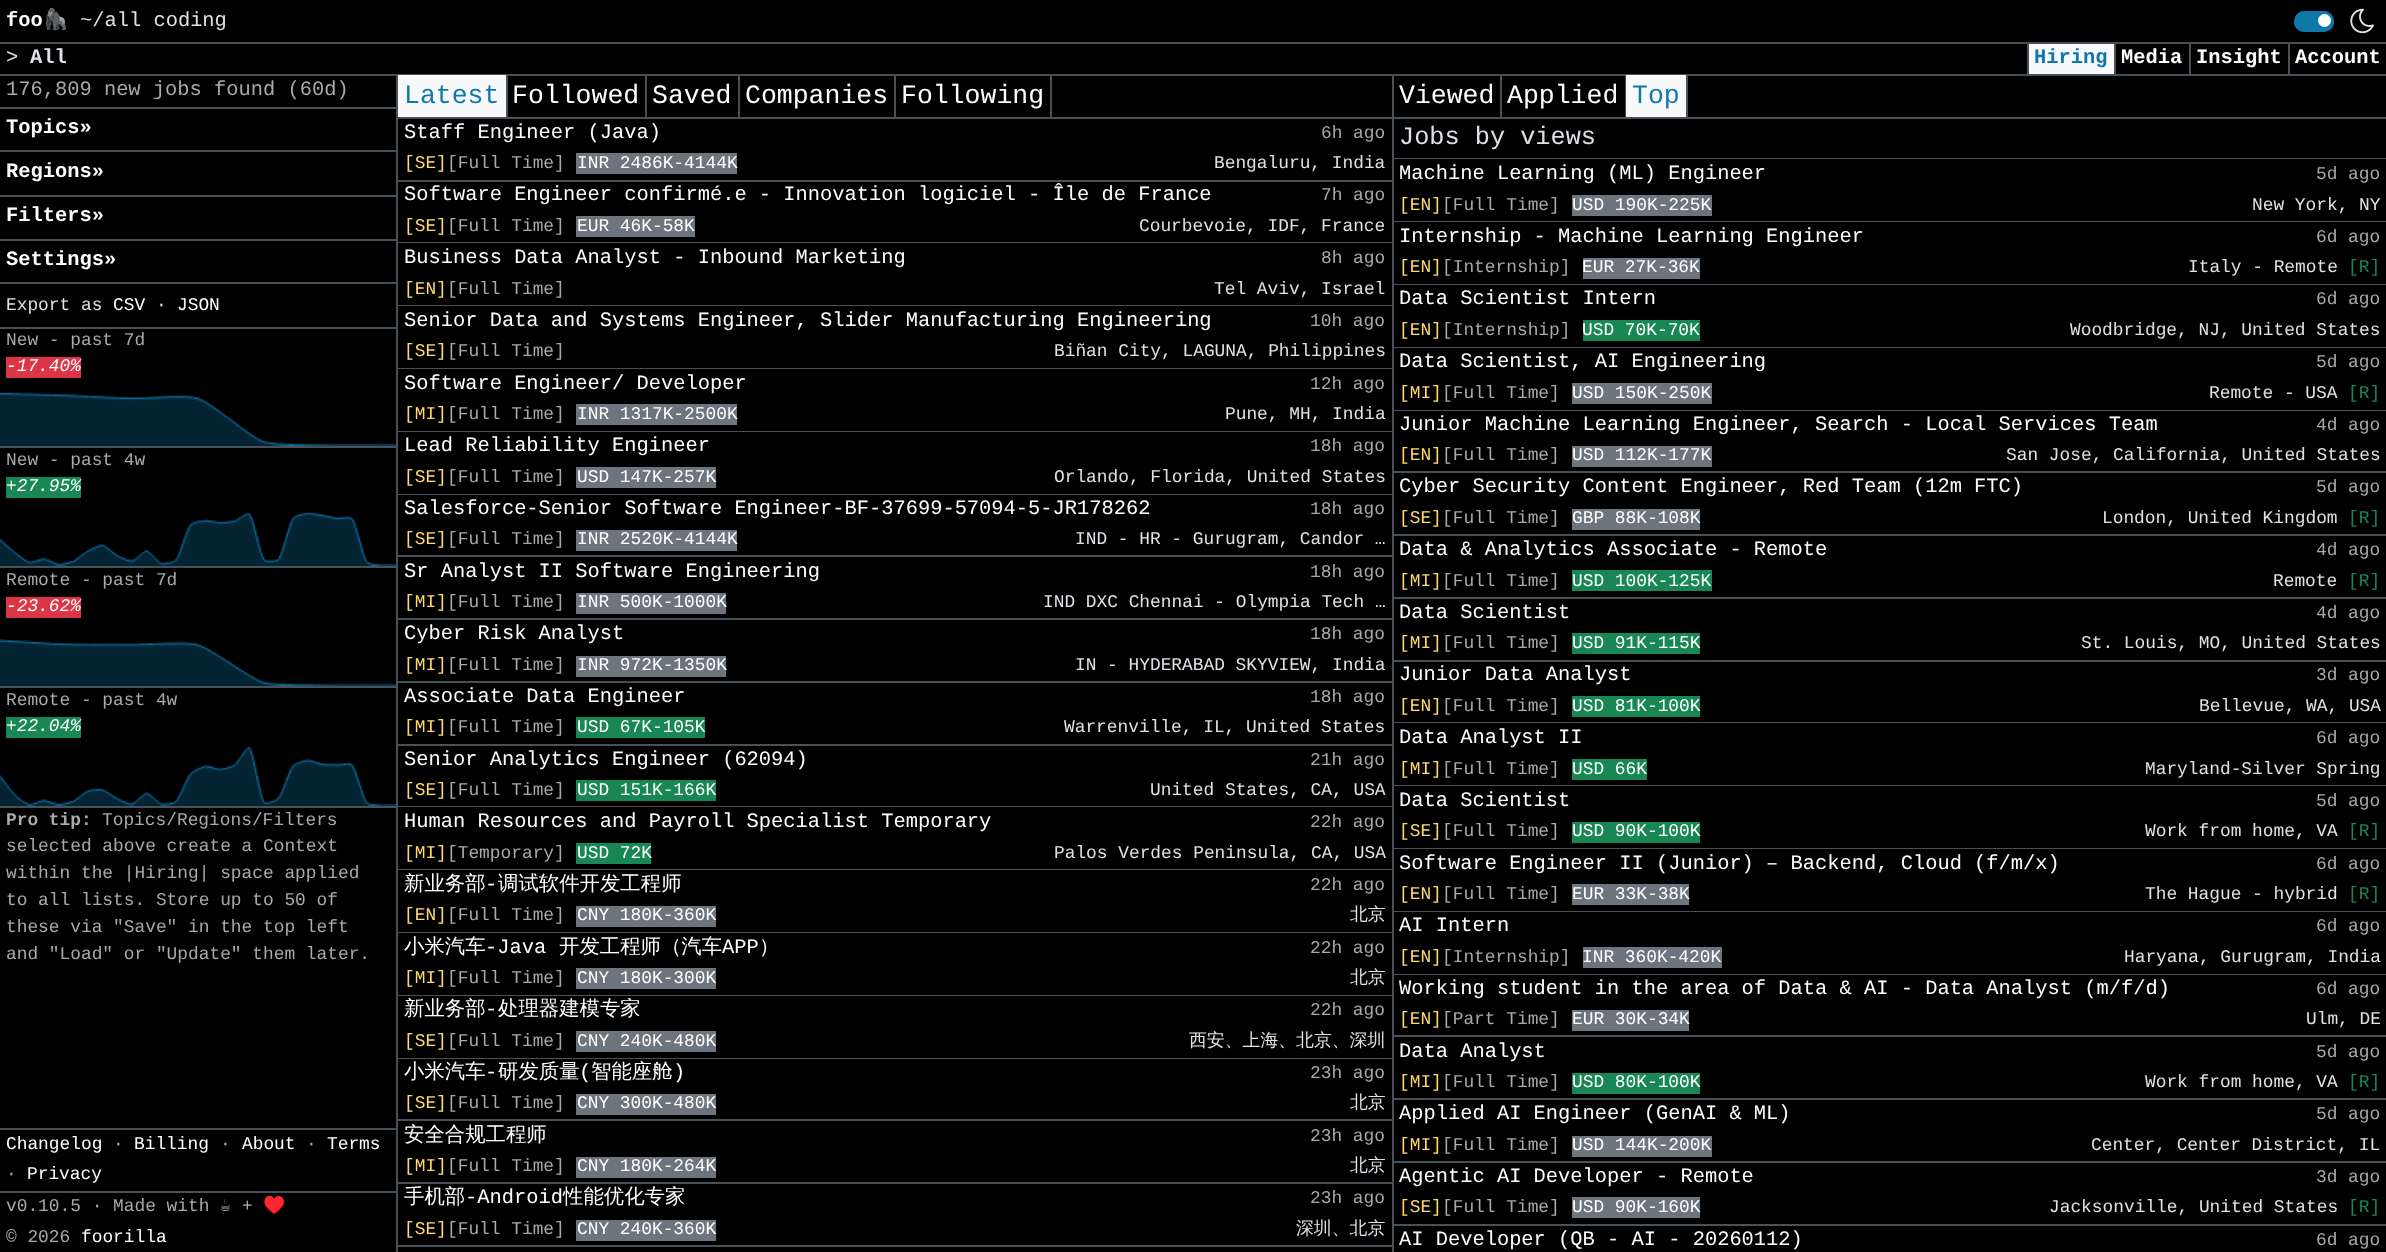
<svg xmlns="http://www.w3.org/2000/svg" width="2386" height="1252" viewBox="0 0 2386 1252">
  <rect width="100%" height="100%" fill="#000"/>
  <path d="M0 42h2386v2H0z" fill="#495057"/>
  <rect x="2294" y="11" width="40" height="21" rx="10.5" fill="#1077aa"/>
  <circle cx="2324.5" cy="20.5" r="6.5" fill="#fff"/>
  <rect x="2295" y="12" width="38" height="19" rx="9.5" fill="none" stroke="#1077aa" stroke-width="2"/>
  <image x="2350" y="8" width="24" height="26" href="img/1.png"/>
  <path d="M0 74h2386v2H0z" fill="#495057"/>
  <path d="M2029 44h85v30H2029z" fill="#f8f9fa"/>
  <path d="M2027 44h2v30H2027z" fill="#495057"/>
  <path d="M2114 44h2v30H2114z" fill="#495057"/>
  <path d="M2189 44h2v30H2189z" fill="#495057"/>
  <path d="M2288 44h2v30H2288z" fill="#495057"/>
  <path d="M396 75h2v1177H396z" fill="#495057"/>
  <path d="M0 107h396v2H0z" fill="#495057"/>
  <path d="M0 150h396v2H0z" fill="#495057"/>
  <path d="M0 195h396v2H0z" fill="#495057"/>
  <path d="M0 239h396v2H0z" fill="#495057"/>
  <path d="M0 282h396v2H0z" fill="#495057"/>
  <path d="M0 327h396v2H0z" fill="#495057"/>
  <path d="M6 357h75v21H6z" fill="#dc3545"/>
  <path d="M0 446h396v2H0z" fill="#495057"/>
  <image x="0" y="391" width="396" height="55" href="img/2.png"/>
  <path d="M6 477h75v21H6z" fill="#198754"/>
  <path d="M0 566h396v2H0z" fill="#495057"/>
  <image x="0" y="511" width="396" height="55" href="img/3.png"/>
  <path d="M6 597h75v21H6z" fill="#dc3545"/>
  <path d="M0 686h396v2H0z" fill="#495057"/>
  <image x="0" y="638" width="396" height="48" href="img/4.png"/>
  <path d="M6 717h75v21H6z" fill="#198754"/>
  <path d="M0 806h396v2H0z" fill="#495057"/>
  <image x="0" y="746" width="396" height="60" href="img/5.png"/>
  <path d="M0 1128h396v2H0z" fill="#495057"/>
  <path d="M0 1191h396v2H0z" fill="#495057"/>
  <path d="M1392 75h2v1177H1392z" fill="#495057"/>
  <path d="M398 117h994v2H398z" fill="#495057"/>
  <path d="M398 75h108v42H398z" fill="#f8f9fa"/>
  <path d="M506 75h2v42H506z" fill="#495057"/>
  <path d="M645 75h2v42H645z" fill="#495057"/>
  <path d="M738 75h2v42H738z" fill="#495057"/>
  <path d="M894 75h2v42H894z" fill="#495057"/>
  <path d="M1050 75h2v42H1050z" fill="#495057"/>
  <path d="M398 180h994v2H398z" fill="#495057"/>
  <path d="M576 153h161v21H576z" fill="#6c757d"/>
  <path d="M398 242h994v1H398z" fill="#495057"/>
  <path d="M576 216h119v21H576z" fill="#6c757d"/>
  <path d="M398 305h994v1H398z" fill="#495057"/>
  <path d="M398 368h994v1H398z" fill="#495057"/>
  <path d="M398 431h994v1H398z" fill="#495057"/>
  <path d="M576 404h161v21H576z" fill="#6c757d"/>
  <path d="M398 494h994v1H398z" fill="#495057"/>
  <path d="M576 467h140v21H576z" fill="#6c757d"/>
  <path d="M398 555h994v2H398z" fill="#495057"/>
  <path d="M576 530h161v21H576z" fill="#6c757d"/>
  <path d="M398 618h994v2H398z" fill="#495057"/>
  <path d="M576 593h150v21H576z" fill="#6c757d"/>
  <path d="M398 681h994v2H398z" fill="#495057"/>
  <path d="M576 656h150v21H576z" fill="#6c757d"/>
  <path d="M398 744h994v2H398z" fill="#495057"/>
  <path d="M576 717h129v21H576z" fill="#198754"/>
  <path d="M398 806h994v1H398z" fill="#495057"/>
  <path d="M576 780h140v21H576z" fill="#198754"/>
  <path d="M398 869h994v1H398z" fill="#495057"/>
  <path d="M576 843h75v21H576z" fill="#198754"/>
  <path d="M398 932h994v1H398z" fill="#495057"/>
  <path d="M576 906h140v21H576z" fill="#6c757d"/>
  <path d="M398 995h994v1H398z" fill="#495057"/>
  <path d="M576 968h140v21H576z" fill="#6c757d"/>
  <path d="M398 1058h994v1H398z" fill="#495057"/>
  <path d="M576 1031h140v21H576z" fill="#6c757d"/>
  <path d="M398 1119h994v2H398z" fill="#495057"/>
  <path d="M576 1094h140v21H576z" fill="#6c757d"/>
  <path d="M398 1182h994v2H398z" fill="#495057"/>
  <path d="M576 1157h140v21H576z" fill="#6c757d"/>
  <path d="M398 1245h994v2H398z" fill="#495057"/>
  <path d="M576 1220h140v21H576z" fill="#6c757d"/>
  <path d="M1394 117h992v2H1394z" fill="#495057"/>
  <path d="M1500 75h2v42H1500z" fill="#495057"/>
  <path d="M1625 75h1v42H1625z" fill="#495057"/>
  <path d="M1626 75h60v42H1626z" fill="#f8f9fa"/>
  <path d="M1686 75h2v42H1686z" fill="#495057"/>
  <path d="M1394 158h992v1H1394z" fill="#495057"/>
  <path d="M1394 221h992v1H1394z" fill="#495057"/>
  <path d="M1572 195h140v21H1572z" fill="#6c757d"/>
  <path d="M1394 284h992v1H1394z" fill="#495057"/>
  <path d="M1583 258h117v21H1583z" fill="#6c757d"/>
  <path d="M1394 347h992v1H1394z" fill="#495057"/>
  <path d="M1583 320h117v21H1583z" fill="#198754"/>
  <path d="M1394 410h992v1H1394z" fill="#495057"/>
  <path d="M1572 383h140v21H1572z" fill="#6c757d"/>
  <path d="M1394 471h992v2H1394z" fill="#495057"/>
  <path d="M1572 446h140v21H1572z" fill="#6c757d"/>
  <path d="M1394 534h992v2H1394z" fill="#495057"/>
  <path d="M1572 509h128v21H1572z" fill="#6c757d"/>
  <path d="M1394 597h992v2H1394z" fill="#495057"/>
  <path d="M1572 570h140v21H1572z" fill="#198754"/>
  <path d="M1394 660h992v2H1394z" fill="#495057"/>
  <path d="M1572 633h128v21H1572z" fill="#198754"/>
  <path d="M1394 722h992v1H1394z" fill="#495057"/>
  <path d="M1572 696h128v21H1572z" fill="#198754"/>
  <path d="M1394 785h992v1H1394z" fill="#495057"/>
  <path d="M1572 759h75v21H1572z" fill="#198754"/>
  <path d="M1394 848h992v1H1394z" fill="#495057"/>
  <path d="M1572 822h128v21H1572z" fill="#198754"/>
  <path d="M1394 911h992v1H1394z" fill="#495057"/>
  <path d="M1572 884h117v21H1572z" fill="#6c757d"/>
  <path d="M1394 974h992v1H1394z" fill="#495057"/>
  <path d="M1583 947h139v21H1583z" fill="#6c757d"/>
  <path d="M1394 1035h992v2H1394z" fill="#495057"/>
  <path d="M1572 1010h117v21H1572z" fill="#6c757d"/>
  <path d="M1394 1098h992v2H1394z" fill="#495057"/>
  <path d="M1572 1073h128v21H1572z" fill="#198754"/>
  <path d="M1394 1161h992v2H1394z" fill="#495057"/>
  <path d="M1572 1136h140v21H1572z" fill="#6c757d"/>
  <path d="M1394 1224h992v2H1394z" fill="#495057"/>
  <path d="M1572 1197h128v21H1572z" fill="#6c757d"/>
  <text x="6" y="26" font-family="Liberation Mono" font-size="20.4" font-weight="bold" fill="#fff">foo</text>
  <text x="43" y="26" font-family="Noto Color Emoji" font-size="20.4" font-weight="bold" fill="#fff">🦍</text>
  <g font-family="Liberation Mono" font-size="20.4" fill="#dee2e6">
    <text x="80" y="26">~/all coding</text>
    <text x="6" y="63">&gt;</text>
  </g>
  <text x="30" y="63" font-family="Liberation Mono" font-size="20.4" font-weight="bold" fill="#dee2e6">All</text>
  <text x="2034" y="63" font-family="Liberation Mono" font-size="20.4" font-weight="bold" fill="#1077aa">Hiring</text>
  <g font-family="Liberation Mono" font-size="20.4" font-weight="bold" fill="#fff">
    <text x="2121" y="63">Media</text>
    <text x="2196" y="63">Insight</text>
    <text x="2295" y="63">Account</text>
  </g>
  <text x="6" y="95" font-family="Liberation Mono" font-size="20.4" fill="#a7aaad">176,809 new jobs found (60d)</text>
  <g font-family="Liberation Mono" font-size="20.4" font-weight="bold" fill="#fff">
    <text x="6" y="133">Topics»</text>
    <text x="6" y="177">Regions»</text>
    <text x="6" y="221">Filters»</text>
    <text x="6" y="265">Settings»</text>
  </g>
  <text x="6" y="310" font-family="Liberation Mono" font-size="17.85" fill="#dee2e6">Export as</text>
  <text x="113" y="310" font-family="Liberation Mono" font-size="17.85" fill="#fff">CSV</text>
  <text x="156" y="310" font-family="Liberation Mono" font-size="17.85" fill="#dee2e6">·</text>
  <text x="177" y="310" font-family="Liberation Mono" font-size="17.85" fill="#fff">JSON</text>
  <text x="6" y="345" font-family="Liberation Mono" font-size="17.85" fill="#a7aaad">New - past 7d</text>
  <text x="6" y="371" font-family="Liberation Mono" font-size="17.85" font-style="italic" fill="#fff">-17.40%</text>
  <text x="6" y="465" font-family="Liberation Mono" font-size="17.85" fill="#a7aaad">New - past 4w</text>
  <text x="6" y="491" font-family="Liberation Mono" font-size="17.85" font-style="italic" fill="#fff">+27.95%</text>
  <text x="6" y="585" font-family="Liberation Mono" font-size="17.85" fill="#a7aaad">Remote - past 7d</text>
  <text x="6" y="611" font-family="Liberation Mono" font-size="17.85" font-style="italic" fill="#fff">-23.62%</text>
  <text x="6" y="705" font-family="Liberation Mono" font-size="17.85" fill="#a7aaad">Remote - past 4w</text>
  <text x="6" y="731" font-family="Liberation Mono" font-size="17.85" font-style="italic" fill="#fff">+22.04%</text>
  <text x="6" y="825" font-family="Liberation Mono" font-size="17.85" font-weight="bold" fill="#a7aaad">Pro tip:</text>
  <g font-family="Liberation Mono" font-size="17.85" fill="#a7aaad">
    <text x="102" y="825">Topics/Regions/Filters</text>
    <text x="6" y="851">selected above create a Context</text>
    <text x="6" y="878">within the |Hiring| space applied</text>
    <text x="6" y="905">to all lists. Store up to 50 of</text>
    <text x="6" y="932">these via "Save" in the top left</text>
    <text x="6" y="959">and "Load" or "Update" them later.</text>
  </g>
  <text x="6" y="1149" font-family="Liberation Mono" font-size="17.85" fill="#fff">Changelog</text>
  <text x="113" y="1149" font-family="Liberation Mono" font-size="17.85" fill="#a7aaad">·</text>
  <text x="134" y="1149" font-family="Liberation Mono" font-size="17.85" fill="#fff">Billing</text>
  <text x="220" y="1149" font-family="Liberation Mono" font-size="17.85" fill="#a7aaad">·</text>
  <text x="242" y="1149" font-family="Liberation Mono" font-size="17.85" fill="#fff">About</text>
  <text x="306" y="1149" font-family="Liberation Mono" font-size="17.85" fill="#a7aaad">·</text>
  <text x="327" y="1149" font-family="Liberation Mono" font-size="17.85" fill="#fff">Terms</text>
  <text x="6" y="1179" font-family="Liberation Mono" font-size="17.85" fill="#a7aaad">·</text>
  <text x="27" y="1179" font-family="Liberation Mono" font-size="17.85" fill="#fff">Privacy</text>
  <text x="6" y="1211" font-family="Liberation Mono" font-size="17.85" fill="#a7aaad">v0.10.5 · Made with</text>
  <text x="220" y="1211" font-family="DejaVu Sans Mono" font-size="17.85" fill="#a7aaad">☕</text>
  <text x="242" y="1211" font-family="Liberation Mono" font-size="17.85" fill="#a7aaad">+</text>
  <text x="263" y="1211" font-family="Noto Color Emoji" font-size="17.85" fill="#a7aaad">♥️</text>
  <text x="6" y="1242" font-family="Liberation Mono" font-size="17.85" fill="#a7aaad">© 2026</text>
  <text x="81" y="1242" font-family="Liberation Mono" font-size="17.85" fill="#fff">foorilla</text>
  <text x="404" y="103" font-family="Liberation Mono" font-size="26.5" fill="#1077aa">Latest</text>
  <g font-family="Liberation Mono" font-size="26.5" fill="#fff">
    <text x="512" y="103">Followed</text>
    <text x="652" y="103">Saved</text>
    <text x="745" y="103">Companies</text>
    <text x="901" y="103">Following</text>
  </g>
  <text x="404" y="138" font-family="Liberation Mono" font-size="20.4" fill="#fff">Staff Engineer (Java)</text>
  <text x="1321" y="138" font-family="Liberation Mono" font-size="17.85" fill="#a7aaad">6h ago</text>
  <text x="404" y="168" font-family="Liberation Mono" font-size="17.85" fill="#ffda6a">[SE]</text>
  <text x="447" y="168" font-family="Liberation Mono" font-size="17.85" fill="#a7aaad">[Full Time]</text>
  <text x="577" y="168" font-family="Liberation Mono" font-size="17.85" fill="#fff">INR 2486K-4144K</text>
  <text x="1214" y="168" font-family="Liberation Mono" font-size="17.85" fill="#dee2e6">Bengaluru, India</text>
  <text x="404" y="200" font-family="Liberation Mono" font-size="20.4" fill="#fff">Software Engineer confirmé.e - Innovation logiciel - Île de France</text>
  <text x="1321" y="200" font-family="Liberation Mono" font-size="17.85" fill="#a7aaad">7h ago</text>
  <text x="404" y="231" font-family="Liberation Mono" font-size="17.85" fill="#ffda6a">[SE]</text>
  <text x="447" y="231" font-family="Liberation Mono" font-size="17.85" fill="#a7aaad">[Full Time]</text>
  <text x="577" y="231" font-family="Liberation Mono" font-size="17.85" fill="#fff">EUR 46K-58K</text>
  <text x="1139" y="231" font-family="Liberation Mono" font-size="17.85" fill="#dee2e6">Courbevoie, IDF, France</text>
  <text x="404" y="263" font-family="Liberation Mono" font-size="20.4" fill="#fff">Business Data Analyst - Inbound Marketing</text>
  <text x="1321" y="263" font-family="Liberation Mono" font-size="17.85" fill="#a7aaad">8h ago</text>
  <text x="404" y="294" font-family="Liberation Mono" font-size="17.85" fill="#ffda6a">[EN]</text>
  <text x="447" y="294" font-family="Liberation Mono" font-size="17.85" fill="#a7aaad">[Full Time]</text>
  <text x="1214" y="294" font-family="Liberation Mono" font-size="17.85" fill="#dee2e6">Tel Aviv, Israel</text>
  <text x="404" y="326" font-family="Liberation Mono" font-size="20.4" fill="#fff">Senior Data and Systems Engineer, Slider Manufacturing Engineering</text>
  <text x="1310" y="326" font-family="Liberation Mono" font-size="17.85" fill="#a7aaad">10h ago</text>
  <text x="404" y="356" font-family="Liberation Mono" font-size="17.85" fill="#ffda6a">[SE]</text>
  <text x="447" y="356" font-family="Liberation Mono" font-size="17.85" fill="#a7aaad">[Full Time]</text>
  <text x="1054" y="356" font-family="Liberation Mono" font-size="17.85" fill="#dee2e6">Biñan City, LAGUNA, Philippines</text>
  <text x="404" y="389" font-family="Liberation Mono" font-size="20.4" fill="#fff">Software Engineer/ Developer</text>
  <text x="1310" y="389" font-family="Liberation Mono" font-size="17.85" fill="#a7aaad">12h ago</text>
  <text x="404" y="419" font-family="Liberation Mono" font-size="17.85" fill="#ffda6a">[MI]</text>
  <text x="447" y="419" font-family="Liberation Mono" font-size="17.85" fill="#a7aaad">[Full Time]</text>
  <text x="577" y="419" font-family="Liberation Mono" font-size="17.85" fill="#fff">INR 1317K-2500K</text>
  <text x="1225" y="419" font-family="Liberation Mono" font-size="17.85" fill="#dee2e6">Pune, MH, India</text>
  <text x="404" y="451" font-family="Liberation Mono" font-size="20.4" fill="#fff">Lead Reliability Engineer</text>
  <text x="1310" y="451" font-family="Liberation Mono" font-size="17.85" fill="#a7aaad">18h ago</text>
  <text x="404" y="482" font-family="Liberation Mono" font-size="17.85" fill="#ffda6a">[SE]</text>
  <text x="447" y="482" font-family="Liberation Mono" font-size="17.85" fill="#a7aaad">[Full Time]</text>
  <text x="577" y="482" font-family="Liberation Mono" font-size="17.85" fill="#fff">USD 147K-257K</text>
  <text x="1054" y="482" font-family="Liberation Mono" font-size="17.85" fill="#dee2e6">Orlando, Florida, United States</text>
  <text x="404" y="514" font-family="Liberation Mono" font-size="20.4" fill="#fff">Salesforce-Senior Software Engineer-BF-37699-57094-5-JR178262</text>
  <text x="1310" y="514" font-family="Liberation Mono" font-size="17.85" fill="#a7aaad">18h ago</text>
  <text x="404" y="544" font-family="Liberation Mono" font-size="17.85" fill="#ffda6a">[SE]</text>
  <text x="447" y="544" font-family="Liberation Mono" font-size="17.85" fill="#a7aaad">[Full Time]</text>
  <text x="577" y="544" font-family="Liberation Mono" font-size="17.85" fill="#fff">INR 2520K-4144K</text>
  <text x="1075" y="544" font-family="Liberation Mono" font-size="17.85" fill="#dee2e6">IND - HR - Gurugram, Candor …</text>
  <text x="404" y="577" font-family="Liberation Mono" font-size="20.4" fill="#fff">Sr Analyst II Software Engineering</text>
  <text x="1310" y="577" font-family="Liberation Mono" font-size="17.85" fill="#a7aaad">18h ago</text>
  <text x="404" y="607" font-family="Liberation Mono" font-size="17.85" fill="#ffda6a">[MI]</text>
  <text x="447" y="607" font-family="Liberation Mono" font-size="17.85" fill="#a7aaad">[Full Time]</text>
  <text x="577" y="607" font-family="Liberation Mono" font-size="17.85" fill="#fff">INR 500K-1000K</text>
  <text x="1043" y="607" font-family="Liberation Mono" font-size="17.85" fill="#dee2e6">IND DXC Chennai - Olympia Tech …</text>
  <text x="404" y="639" font-family="Liberation Mono" font-size="20.4" fill="#fff">Cyber Risk Analyst</text>
  <text x="1310" y="639" font-family="Liberation Mono" font-size="17.85" fill="#a7aaad">18h ago</text>
  <text x="404" y="670" font-family="Liberation Mono" font-size="17.85" fill="#ffda6a">[MI]</text>
  <text x="447" y="670" font-family="Liberation Mono" font-size="17.85" fill="#a7aaad">[Full Time]</text>
  <text x="577" y="670" font-family="Liberation Mono" font-size="17.85" fill="#fff">INR 972K-1350K</text>
  <text x="1075" y="670" font-family="Liberation Mono" font-size="17.85" fill="#dee2e6">IN - HYDERABAD SKYVIEW, India</text>
  <text x="404" y="702" font-family="Liberation Mono" font-size="20.4" fill="#fff">Associate Data Engineer</text>
  <text x="1310" y="702" font-family="Liberation Mono" font-size="17.85" fill="#a7aaad">18h ago</text>
  <text x="404" y="732" font-family="Liberation Mono" font-size="17.85" fill="#ffda6a">[MI]</text>
  <text x="447" y="732" font-family="Liberation Mono" font-size="17.85" fill="#a7aaad">[Full Time]</text>
  <text x="577" y="732" font-family="Liberation Mono" font-size="17.85" fill="#fff">USD 67K-105K</text>
  <text x="1064" y="732" font-family="Liberation Mono" font-size="17.85" fill="#dee2e6">Warrenville, IL, United States</text>
  <text x="404" y="765" font-family="Liberation Mono" font-size="20.4" fill="#fff">Senior Analytics Engineer (62094)</text>
  <text x="1310" y="765" font-family="Liberation Mono" font-size="17.85" fill="#a7aaad">21h ago</text>
  <text x="404" y="795" font-family="Liberation Mono" font-size="17.85" fill="#ffda6a">[SE]</text>
  <text x="447" y="795" font-family="Liberation Mono" font-size="17.85" fill="#a7aaad">[Full Time]</text>
  <text x="577" y="795" font-family="Liberation Mono" font-size="17.85" fill="#fff">USD 151K-166K</text>
  <text x="1150" y="795" font-family="Liberation Mono" font-size="17.85" fill="#dee2e6">United States, CA, USA</text>
  <text x="404" y="827" font-family="Liberation Mono" font-size="20.4" fill="#fff">Human Resources and Payroll Specialist Temporary</text>
  <text x="1310" y="827" font-family="Liberation Mono" font-size="17.85" fill="#a7aaad">22h ago</text>
  <text x="404" y="858" font-family="Liberation Mono" font-size="17.85" fill="#ffda6a">[MI]</text>
  <text x="447" y="858" font-family="Liberation Mono" font-size="17.85" fill="#a7aaad">[Temporary]</text>
  <text x="577" y="858" font-family="Liberation Mono" font-size="17.85" fill="#fff">USD 72K</text>
  <text x="1054" y="858" font-family="Liberation Mono" font-size="17.85" fill="#dee2e6">Palos Verdes Peninsula, CA, USA</text>
  <text x="404" y="890" font-family="WenQuanYi Zen Hei" font-size="20.4" font-weight="500" fill="#fff">新业务部</text>
  <text x="485" y="890" font-family="Liberation Mono" font-size="20.4" fill="#fff">-</text>
  <text x="498" y="890" font-family="WenQuanYi Zen Hei" font-size="20.4" font-weight="500" fill="#fff">调试软件开发工程师</text>
  <text x="1310" y="890" font-family="Liberation Mono" font-size="17.85" fill="#a7aaad">22h ago</text>
  <text x="404" y="920" font-family="Liberation Mono" font-size="17.85" fill="#ffda6a">[EN]</text>
  <text x="447" y="920" font-family="Liberation Mono" font-size="17.85" fill="#a7aaad">[Full Time]</text>
  <text x="577" y="920" font-family="Liberation Mono" font-size="17.85" fill="#fff">CNY 180K-360K</text>
  <text x="1350" y="920" font-family="WenQuanYi Zen Hei" font-size="17.85" font-weight="500" fill="#dee2e6">北京</text>
  <text x="404" y="953" font-family="WenQuanYi Zen Hei" font-size="20.4" font-weight="500" fill="#fff">小米汽车</text>
  <text x="485" y="953" font-family="Liberation Mono" font-size="20.4" fill="#fff">-Java</text>
  <text x="559" y="953" font-family="WenQuanYi Zen Hei" font-size="20.4" font-weight="500" fill="#fff">开发工程师（汽车</text>
  <text x="722" y="953" font-family="Liberation Mono" font-size="20.4" fill="#fff">APP</text>
  <text x="759" y="953" font-family="WenQuanYi Zen Hei" font-size="20.4" font-weight="500" fill="#fff">）</text>
  <text x="1310" y="953" font-family="Liberation Mono" font-size="17.85" fill="#a7aaad">22h ago</text>
  <text x="404" y="983" font-family="Liberation Mono" font-size="17.85" fill="#ffda6a">[MI]</text>
  <text x="447" y="983" font-family="Liberation Mono" font-size="17.85" fill="#a7aaad">[Full Time]</text>
  <text x="577" y="983" font-family="Liberation Mono" font-size="17.85" fill="#fff">CNY 180K-300K</text>
  <text x="1350" y="983" font-family="WenQuanYi Zen Hei" font-size="17.85" font-weight="500" fill="#dee2e6">北京</text>
  <text x="404" y="1015" font-family="WenQuanYi Zen Hei" font-size="20.4" font-weight="500" fill="#fff">新业务部</text>
  <text x="485" y="1015" font-family="Liberation Mono" font-size="20.4" fill="#fff">-</text>
  <text x="498" y="1015" font-family="WenQuanYi Zen Hei" font-size="20.4" font-weight="500" fill="#fff">处理器建模专家</text>
  <text x="1310" y="1015" font-family="Liberation Mono" font-size="17.85" fill="#a7aaad">22h ago</text>
  <text x="404" y="1046" font-family="Liberation Mono" font-size="17.85" fill="#ffda6a">[SE]</text>
  <text x="447" y="1046" font-family="Liberation Mono" font-size="17.85" fill="#a7aaad">[Full Time]</text>
  <text x="577" y="1046" font-family="Liberation Mono" font-size="17.85" fill="#fff">CNY 240K-480K</text>
  <text x="1189" y="1046" font-family="WenQuanYi Zen Hei" font-size="17.85" font-weight="500" fill="#dee2e6">西安、上海、北京、深圳</text>
  <text x="404" y="1078" font-family="WenQuanYi Zen Hei" font-size="20.4" font-weight="500" fill="#fff">小米汽车</text>
  <text x="485" y="1078" font-family="Liberation Mono" font-size="20.4" fill="#fff">-</text>
  <text x="498" y="1078" font-family="WenQuanYi Zen Hei" font-size="20.4" font-weight="500" fill="#fff">研发质量</text>
  <text x="579" y="1078" font-family="Liberation Mono" font-size="20.4" fill="#fff">(</text>
  <text x="591" y="1078" font-family="WenQuanYi Zen Hei" font-size="20.4" font-weight="500" fill="#fff">智能座舱</text>
  <text x="673" y="1078" font-family="Liberation Mono" font-size="20.4" fill="#fff">)</text>
  <text x="1310" y="1078" font-family="Liberation Mono" font-size="17.85" fill="#a7aaad">23h ago</text>
  <text x="404" y="1108" font-family="Liberation Mono" font-size="17.85" fill="#ffda6a">[SE]</text>
  <text x="447" y="1108" font-family="Liberation Mono" font-size="17.85" fill="#a7aaad">[Full Time]</text>
  <text x="577" y="1108" font-family="Liberation Mono" font-size="17.85" fill="#fff">CNY 300K-480K</text>
  <text x="1350" y="1108" font-family="WenQuanYi Zen Hei" font-size="17.85" font-weight="500" fill="#dee2e6">北京</text>
  <text x="404" y="1141" font-family="WenQuanYi Zen Hei" font-size="20.4" font-weight="500" fill="#fff">安全合规工程师</text>
  <text x="1310" y="1141" font-family="Liberation Mono" font-size="17.85" fill="#a7aaad">23h ago</text>
  <text x="404" y="1171" font-family="Liberation Mono" font-size="17.85" fill="#ffda6a">[MI]</text>
  <text x="447" y="1171" font-family="Liberation Mono" font-size="17.85" fill="#a7aaad">[Full Time]</text>
  <text x="577" y="1171" font-family="Liberation Mono" font-size="17.85" fill="#fff">CNY 180K-264K</text>
  <text x="1350" y="1171" font-family="WenQuanYi Zen Hei" font-size="17.85" font-weight="500" fill="#dee2e6">北京</text>
  <text x="404" y="1203" font-family="WenQuanYi Zen Hei" font-size="20.4" font-weight="500" fill="#fff">手机部</text>
  <text x="465" y="1203" font-family="Liberation Mono" font-size="20.4" fill="#fff">-Android</text>
  <text x="563" y="1203" font-family="WenQuanYi Zen Hei" font-size="20.4" font-weight="500" fill="#fff">性能优化专家</text>
  <text x="1310" y="1203" font-family="Liberation Mono" font-size="17.85" fill="#a7aaad">23h ago</text>
  <text x="404" y="1234" font-family="Liberation Mono" font-size="17.85" fill="#ffda6a">[SE]</text>
  <text x="447" y="1234" font-family="Liberation Mono" font-size="17.85" fill="#a7aaad">[Full Time]</text>
  <text x="577" y="1234" font-family="Liberation Mono" font-size="17.85" fill="#fff">CNY 240K-360K</text>
  <text x="1296" y="1234" font-family="WenQuanYi Zen Hei" font-size="17.85" font-weight="500" fill="#dee2e6">深圳、北京</text>
  <g font-family="Liberation Mono" font-size="26.5" fill="#fff">
    <text x="1399" y="103">Viewed</text>
    <text x="1507" y="103">Applied</text>
  </g>
  <text x="1632" y="103" font-family="Liberation Mono" font-size="26.5" fill="#1077aa">Top</text>
  <text x="1399" y="144" font-family="Liberation Mono" font-size="25.25" fill="#dee2e6">Jobs by views</text>
  <text x="1399" y="179" font-family="Liberation Mono" font-size="20.4" fill="#fff">Machine Learning (ML) Engineer</text>
  <text x="2316" y="179" font-family="Liberation Mono" font-size="17.85" fill="#a7aaad">5d ago</text>
  <text x="1399" y="210" font-family="Liberation Mono" font-size="17.85" fill="#ffda6a">[EN]</text>
  <text x="1442" y="210" font-family="Liberation Mono" font-size="17.85" fill="#a7aaad">[Full Time]</text>
  <text x="1572" y="210" font-family="Liberation Mono" font-size="17.85" fill="#fff">USD 190K-225K</text>
  <text x="2252" y="210" font-family="Liberation Mono" font-size="17.85" fill="#dee2e6">New York, NY</text>
  <text x="1399" y="242" font-family="Liberation Mono" font-size="20.4" fill="#fff">Internship - Machine Learning Engineer</text>
  <text x="2316" y="242" font-family="Liberation Mono" font-size="17.85" fill="#a7aaad">6d ago</text>
  <text x="1399" y="272" font-family="Liberation Mono" font-size="17.85" fill="#ffda6a">[EN]</text>
  <text x="1442" y="272" font-family="Liberation Mono" font-size="17.85" fill="#a7aaad">[Internship]</text>
  <text x="1582" y="272" font-family="Liberation Mono" font-size="17.85" fill="#fff">EUR 27K-36K</text>
  <text x="2188" y="272" font-family="Liberation Mono" font-size="17.85" fill="#dee2e6">Italy - Remote</text>
  <text x="2348" y="272" font-family="Liberation Mono" font-size="17.85" fill="#198754">[R]</text>
  <text x="1399" y="304" font-family="Liberation Mono" font-size="20.4" fill="#fff">Data Scientist Intern</text>
  <text x="2316" y="304" font-family="Liberation Mono" font-size="17.85" fill="#a7aaad">6d ago</text>
  <text x="1399" y="335" font-family="Liberation Mono" font-size="17.85" fill="#ffda6a">[EN]</text>
  <text x="1442" y="335" font-family="Liberation Mono" font-size="17.85" fill="#a7aaad">[Internship]</text>
  <text x="1582" y="335" font-family="Liberation Mono" font-size="17.85" fill="#fff">USD 70K-70K</text>
  <text x="2070" y="335" font-family="Liberation Mono" font-size="17.85" fill="#dee2e6">Woodbridge, NJ, United States</text>
  <text x="1399" y="367" font-family="Liberation Mono" font-size="20.4" fill="#fff">Data Scientist, AI Engineering</text>
  <text x="2316" y="367" font-family="Liberation Mono" font-size="17.85" fill="#a7aaad">5d ago</text>
  <text x="1399" y="398" font-family="Liberation Mono" font-size="17.85" fill="#ffda6a">[MI]</text>
  <text x="1442" y="398" font-family="Liberation Mono" font-size="17.85" fill="#a7aaad">[Full Time]</text>
  <text x="1572" y="398" font-family="Liberation Mono" font-size="17.85" fill="#fff">USD 150K-250K</text>
  <text x="2209" y="398" font-family="Liberation Mono" font-size="17.85" fill="#dee2e6">Remote - USA</text>
  <text x="2348" y="398" font-family="Liberation Mono" font-size="17.85" fill="#198754">[R]</text>
  <text x="1399" y="430" font-family="Liberation Mono" font-size="20.4" fill="#fff">Junior Machine Learning Engineer, Search - Local Services Team</text>
  <text x="2316" y="430" font-family="Liberation Mono" font-size="17.85" fill="#a7aaad">4d ago</text>
  <text x="1399" y="460" font-family="Liberation Mono" font-size="17.85" fill="#ffda6a">[EN]</text>
  <text x="1442" y="460" font-family="Liberation Mono" font-size="17.85" fill="#a7aaad">[Full Time]</text>
  <text x="1572" y="460" font-family="Liberation Mono" font-size="17.85" fill="#fff">USD 112K-177K</text>
  <text x="2006" y="460" font-family="Liberation Mono" font-size="17.85" fill="#dee2e6">San Jose, California, United States</text>
  <text x="1399" y="492" font-family="Liberation Mono" font-size="20.4" fill="#fff">Cyber Security Content Engineer, Red Team (12m FTC)</text>
  <text x="2316" y="492" font-family="Liberation Mono" font-size="17.85" fill="#a7aaad">5d ago</text>
  <text x="1399" y="523" font-family="Liberation Mono" font-size="17.85" fill="#ffda6a">[SE]</text>
  <text x="1442" y="523" font-family="Liberation Mono" font-size="17.85" fill="#a7aaad">[Full Time]</text>
  <text x="1572" y="523" font-family="Liberation Mono" font-size="17.85" fill="#fff">GBP 88K-108K</text>
  <text x="2102" y="523" font-family="Liberation Mono" font-size="17.85" fill="#dee2e6">London, United Kingdom</text>
  <text x="2348" y="523" font-family="Liberation Mono" font-size="17.85" fill="#198754">[R]</text>
  <text x="1399" y="555" font-family="Liberation Mono" font-size="20.4" fill="#fff">Data &amp; Analytics Associate - Remote</text>
  <text x="2316" y="555" font-family="Liberation Mono" font-size="17.85" fill="#a7aaad">4d ago</text>
  <text x="1399" y="586" font-family="Liberation Mono" font-size="17.85" fill="#ffda6a">[MI]</text>
  <text x="1442" y="586" font-family="Liberation Mono" font-size="17.85" fill="#a7aaad">[Full Time]</text>
  <text x="1572" y="586" font-family="Liberation Mono" font-size="17.85" fill="#fff">USD 100K-125K</text>
  <text x="2273" y="586" font-family="Liberation Mono" font-size="17.85" fill="#dee2e6">Remote</text>
  <text x="2348" y="586" font-family="Liberation Mono" font-size="17.85" fill="#198754">[R]</text>
  <text x="1399" y="618" font-family="Liberation Mono" font-size="20.4" fill="#fff">Data Scientist</text>
  <text x="2316" y="618" font-family="Liberation Mono" font-size="17.85" fill="#a7aaad">4d ago</text>
  <text x="1399" y="648" font-family="Liberation Mono" font-size="17.85" fill="#ffda6a">[MI]</text>
  <text x="1442" y="648" font-family="Liberation Mono" font-size="17.85" fill="#a7aaad">[Full Time]</text>
  <text x="1572" y="648" font-family="Liberation Mono" font-size="17.85" fill="#fff">USD 91K-115K</text>
  <text x="2081" y="648" font-family="Liberation Mono" font-size="17.85" fill="#dee2e6">St. Louis, MO, United States</text>
  <text x="1399" y="680" font-family="Liberation Mono" font-size="20.4" fill="#fff">Junior Data Analyst</text>
  <text x="2316" y="680" font-family="Liberation Mono" font-size="17.85" fill="#a7aaad">3d ago</text>
  <text x="1399" y="711" font-family="Liberation Mono" font-size="17.85" fill="#ffda6a">[EN]</text>
  <text x="1442" y="711" font-family="Liberation Mono" font-size="17.85" fill="#a7aaad">[Full Time]</text>
  <text x="1572" y="711" font-family="Liberation Mono" font-size="17.85" fill="#fff">USD 81K-100K</text>
  <text x="2199" y="711" font-family="Liberation Mono" font-size="17.85" fill="#dee2e6">Bellevue, WA, USA</text>
  <text x="1399" y="743" font-family="Liberation Mono" font-size="20.4" fill="#fff">Data Analyst II</text>
  <text x="2316" y="743" font-family="Liberation Mono" font-size="17.85" fill="#a7aaad">6d ago</text>
  <text x="1399" y="774" font-family="Liberation Mono" font-size="17.85" fill="#ffda6a">[MI]</text>
  <text x="1442" y="774" font-family="Liberation Mono" font-size="17.85" fill="#a7aaad">[Full Time]</text>
  <text x="1572" y="774" font-family="Liberation Mono" font-size="17.85" fill="#fff">USD 66K</text>
  <text x="2145" y="774" font-family="Liberation Mono" font-size="17.85" fill="#dee2e6">Maryland-Silver Spring</text>
  <text x="1399" y="806" font-family="Liberation Mono" font-size="20.4" fill="#fff">Data Scientist</text>
  <text x="2316" y="806" font-family="Liberation Mono" font-size="17.85" fill="#a7aaad">5d ago</text>
  <text x="1399" y="836" font-family="Liberation Mono" font-size="17.85" fill="#ffda6a">[SE]</text>
  <text x="1442" y="836" font-family="Liberation Mono" font-size="17.85" fill="#a7aaad">[Full Time]</text>
  <text x="1572" y="836" font-family="Liberation Mono" font-size="17.85" fill="#fff">USD 90K-100K</text>
  <text x="2145" y="836" font-family="Liberation Mono" font-size="17.85" fill="#dee2e6">Work from home, VA</text>
  <text x="2348" y="836" font-family="Liberation Mono" font-size="17.85" fill="#198754">[R]</text>
  <text x="1399" y="869" font-family="Liberation Mono" font-size="20.4" fill="#fff">Software Engineer II (Junior) – Backend, Cloud (f/m/x)</text>
  <text x="2316" y="869" font-family="Liberation Mono" font-size="17.85" fill="#a7aaad">6d ago</text>
  <text x="1399" y="899" font-family="Liberation Mono" font-size="17.85" fill="#ffda6a">[EN]</text>
  <text x="1442" y="899" font-family="Liberation Mono" font-size="17.85" fill="#a7aaad">[Full Time]</text>
  <text x="1572" y="899" font-family="Liberation Mono" font-size="17.85" fill="#fff">EUR 33K-38K</text>
  <text x="2145" y="899" font-family="Liberation Mono" font-size="17.85" fill="#dee2e6">The Hague - hybrid</text>
  <text x="2348" y="899" font-family="Liberation Mono" font-size="17.85" fill="#198754">[R]</text>
  <text x="1399" y="931" font-family="Liberation Mono" font-size="20.4" fill="#fff">AI Intern</text>
  <text x="2316" y="931" font-family="Liberation Mono" font-size="17.85" fill="#a7aaad">6d ago</text>
  <text x="1399" y="962" font-family="Liberation Mono" font-size="17.85" fill="#ffda6a">[EN]</text>
  <text x="1442" y="962" font-family="Liberation Mono" font-size="17.85" fill="#a7aaad">[Internship]</text>
  <text x="1582" y="962" font-family="Liberation Mono" font-size="17.85" fill="#fff">INR 360K-420K</text>
  <text x="2124" y="962" font-family="Liberation Mono" font-size="17.85" fill="#dee2e6">Haryana, Gurugram, India</text>
  <text x="1399" y="994" font-family="Liberation Mono" font-size="20.4" fill="#fff">Working student in the area of Data &amp; AI - Data Analyst (m/f/d)</text>
  <text x="2316" y="994" font-family="Liberation Mono" font-size="17.85" fill="#a7aaad">6d ago</text>
  <text x="1399" y="1024" font-family="Liberation Mono" font-size="17.85" fill="#ffda6a">[EN]</text>
  <text x="1442" y="1024" font-family="Liberation Mono" font-size="17.85" fill="#a7aaad">[Part Time]</text>
  <text x="1572" y="1024" font-family="Liberation Mono" font-size="17.85" fill="#fff">EUR 30K-34K</text>
  <text x="2306" y="1024" font-family="Liberation Mono" font-size="17.85" fill="#dee2e6">Ulm, DE</text>
  <text x="1399" y="1057" font-family="Liberation Mono" font-size="20.4" fill="#fff">Data Analyst</text>
  <text x="2316" y="1057" font-family="Liberation Mono" font-size="17.85" fill="#a7aaad">5d ago</text>
  <text x="1399" y="1087" font-family="Liberation Mono" font-size="17.85" fill="#ffda6a">[MI]</text>
  <text x="1442" y="1087" font-family="Liberation Mono" font-size="17.85" fill="#a7aaad">[Full Time]</text>
  <text x="1572" y="1087" font-family="Liberation Mono" font-size="17.85" fill="#fff">USD 80K-100K</text>
  <text x="2145" y="1087" font-family="Liberation Mono" font-size="17.85" fill="#dee2e6">Work from home, VA</text>
  <text x="2348" y="1087" font-family="Liberation Mono" font-size="17.85" fill="#198754">[R]</text>
  <text x="1399" y="1119" font-family="Liberation Mono" font-size="20.4" fill="#fff">Applied AI Engineer (GenAI &amp; ML)</text>
  <text x="2316" y="1119" font-family="Liberation Mono" font-size="17.85" fill="#a7aaad">5d ago</text>
  <text x="1399" y="1150" font-family="Liberation Mono" font-size="17.85" fill="#ffda6a">[MI]</text>
  <text x="1442" y="1150" font-family="Liberation Mono" font-size="17.85" fill="#a7aaad">[Full Time]</text>
  <text x="1572" y="1150" font-family="Liberation Mono" font-size="17.85" fill="#fff">USD 144K-200K</text>
  <text x="2091" y="1150" font-family="Liberation Mono" font-size="17.85" fill="#dee2e6">Center, Center District, IL</text>
  <text x="1399" y="1182" font-family="Liberation Mono" font-size="20.4" fill="#fff">Agentic AI Developer - Remote</text>
  <text x="2316" y="1182" font-family="Liberation Mono" font-size="17.85" fill="#a7aaad">3d ago</text>
  <text x="1399" y="1212" font-family="Liberation Mono" font-size="17.85" fill="#ffda6a">[SE]</text>
  <text x="1442" y="1212" font-family="Liberation Mono" font-size="17.85" fill="#a7aaad">[Full Time]</text>
  <text x="1572" y="1212" font-family="Liberation Mono" font-size="17.85" fill="#fff">USD 90K-160K</text>
  <text x="2049" y="1212" font-family="Liberation Mono" font-size="17.85" fill="#dee2e6">Jacksonville, United States</text>
  <text x="2348" y="1212" font-family="Liberation Mono" font-size="17.85" fill="#198754">[R]</text>
  <text x="1399" y="1245" font-family="Liberation Mono" font-size="20.4" fill="#fff">AI Developer (QB - AI - 20260112)</text>
  <text x="2316" y="1245" font-family="Liberation Mono" font-size="17.85" fill="#a7aaad">6d ago</text>
</svg>
